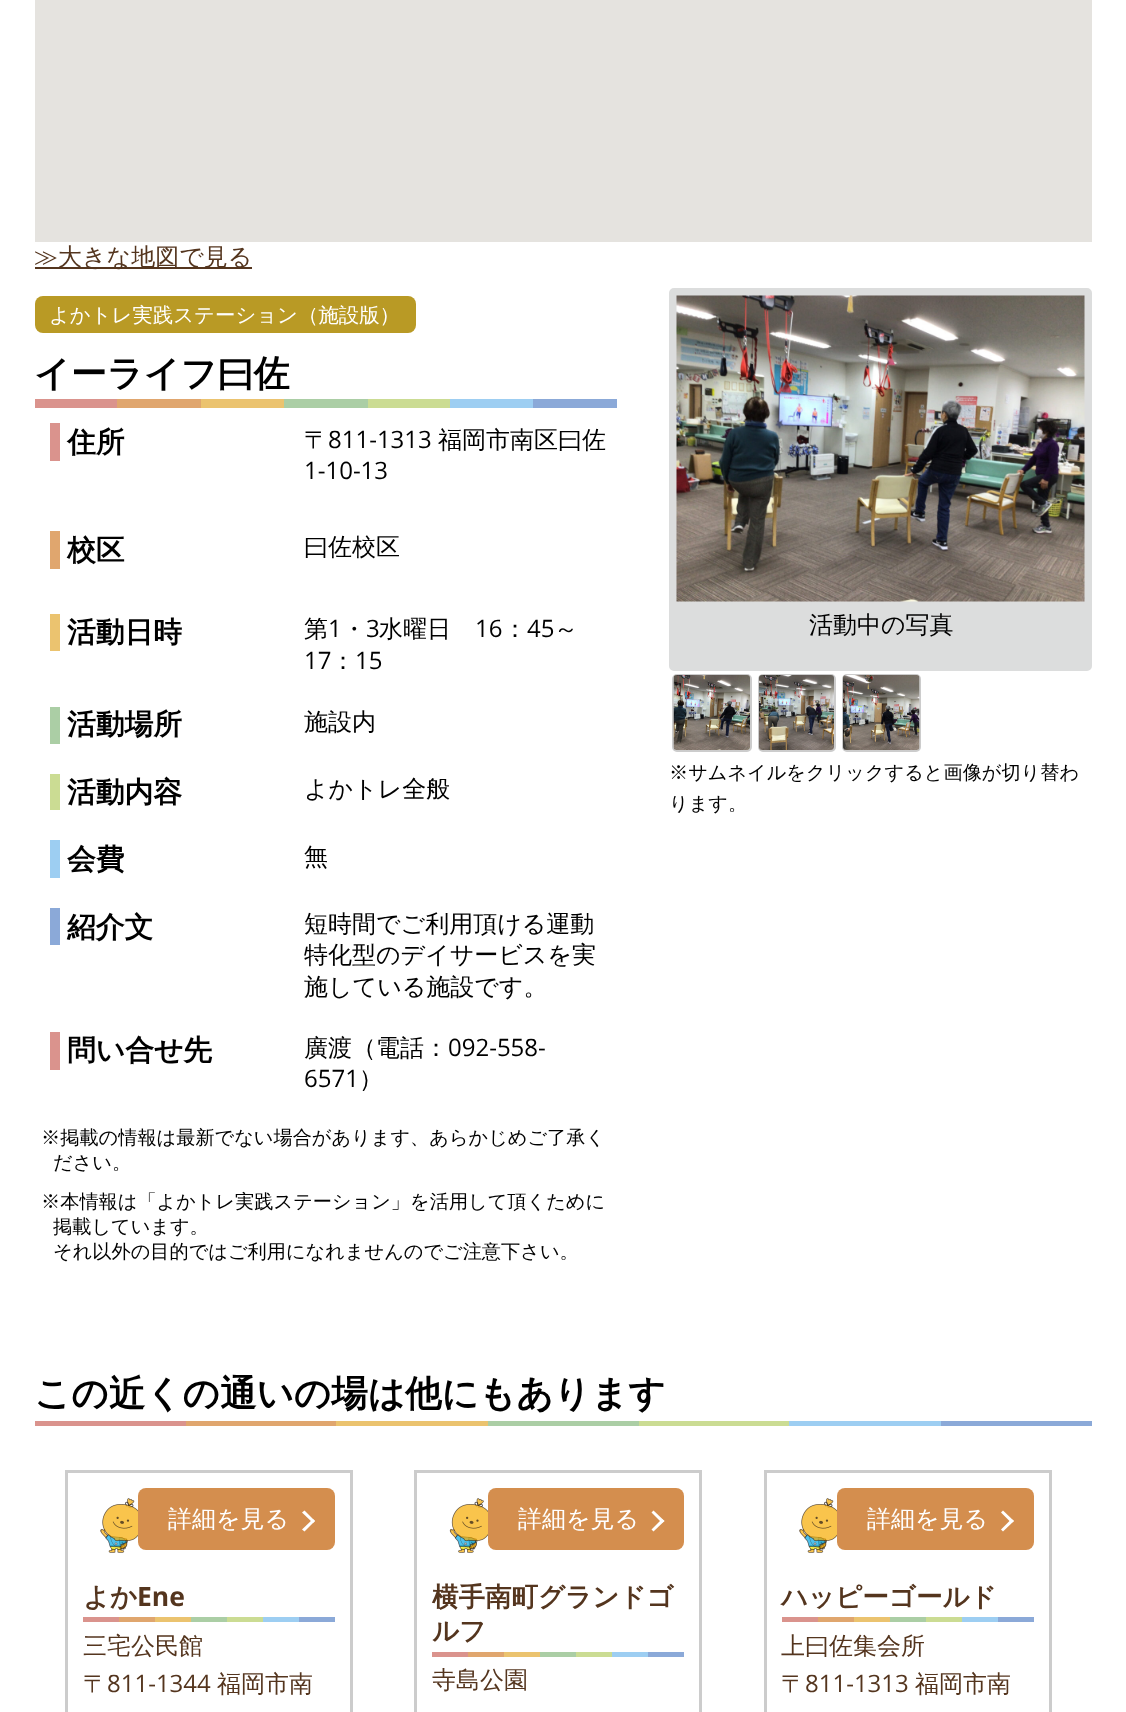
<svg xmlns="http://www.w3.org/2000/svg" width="1126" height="1712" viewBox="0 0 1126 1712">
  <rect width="100%" height="100%" fill="#fff"/>
  <path d="M35 0h1057v242H35z" fill="#e5e3df"/>
  <path d="M35 267h217v2H35z" fill="#54351e"/>
  <rect x="35" y="296" width="381" height="37" rx="8" fill="#b99a25"/>
  <path d="M35 399h82v9H35z" fill="#da938d"/>
  <path d="M117 399h84v9H117z" fill="#e0a66e"/>
  <path d="M201 399h83v9H201z" fill="#ebc36f"/>
  <path d="M284 399h84v9H284z" fill="#abcea5"/>
  <path d="M368 399h82v9H368z" fill="#cbdc93"/>
  <path d="M450 399h83v9H450z" fill="#9dcef2"/>
  <path d="M533 399h84v9H533z" fill="#8ba9d8"/>
  <path d="M50 423h10v38H50z" fill="#da938d"/>
  <path d="M50 531h10v38H50z" fill="#e0a66e"/>
  <path d="M50 614h10v37H50z" fill="#ebc36f"/>
  <path d="M50 707h10v37H50z" fill="#abcea5"/>
  <path d="M50 774h10v36H50z" fill="#cbdc93"/>
  <path d="M50 840h10v38H50z" fill="#9dcef2"/>
  <path d="M50 908h10v37H50z" fill="#8ba9d8"/>
  <path d="M50 1032h10v38H50z" fill="#da938d"/>
  <rect x="673" y="292" width="415" height="375" rx="1" fill="#dcdddd" stroke="#dcdddd" stroke-width="8"/>
  <image x="676" y="295" width="409" height="307" href="img/1.png"/>
  <rect x="673" y="675" width="78" height="76" rx="4" fill="none" stroke="#ccc" stroke-width="2"/>
  <image x="673" y="675" width="77" height="75" href="img/2.png"/>
  <rect x="759" y="675" width="76" height="76" rx="4" fill="none" stroke="#ccc" stroke-width="2"/>
  <image x="759" y="675" width="75" height="75" href="img/3.png"/>
  <rect x="843" y="675" width="77" height="76" rx="4" fill="none" stroke="#ccc" stroke-width="2"/>
  <image x="843" y="675" width="77" height="75" href="img/4.png"/>
  <path d="M35 1421h151v5H35z" fill="#da938d"/>
  <path d="M186 1421h150v5H186z" fill="#e0a66e"/>
  <path d="M336 1421h152v5H336z" fill="#ebc36f"/>
  <path d="M488 1421h151v5H488z" fill="#abcea5"/>
  <path d="M639 1421h150v5H639z" fill="#cbdc93"/>
  <path d="M789 1421h152v5H789z" fill="#9dcef2"/>
  <path d="M941 1421h151v5H941z" fill="#8ba9d8"/>
  <path d="M66.5 1471.5h285v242H66.5z" fill="none" stroke="#ccc" stroke-width="3"/>
  <image x="100" y="1498" width="43" height="55" href="img/5.png"/>
  <rect x="138" y="1488" width="197" height="62" rx="8" fill="#d48e4e"/>
  <path d="M304.5 1510.5L315 1521L313 1523L302 1512.5Z" fill="#fff"/>
  <path d="M313 1519L315 1521L304.5 1531.5L302 1529.5Z" fill="#fff"/>
  <path d="M83 1617h36v5H83z" fill="#da938d"/>
  <path d="M119 1617h36v5H119z" fill="#e0a66e"/>
  <path d="M155 1617h36v5H155z" fill="#ebc36f"/>
  <path d="M191 1617h36v5H191z" fill="#abcea5"/>
  <path d="M227 1617h36v5H227z" fill="#cbdc93"/>
  <path d="M263 1617h36v5H263z" fill="#9dcef2"/>
  <path d="M299 1617h36v5H299z" fill="#8ba9d8"/>
  <path d="M415.5 1471.5h285v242H415.5z" fill="none" stroke="#ccc" stroke-width="3"/>
  <image x="449" y="1498" width="44" height="55" href="img/6.png"/>
  <rect x="488" y="1488" width="196" height="62" rx="8" fill="#d48e4e"/>
  <path d="M653.5 1510.5L664.5 1521L662 1523L651.5 1512.5Z" fill="#fff"/>
  <path d="M662 1519L664.5 1521L653.5 1531.5L651.5 1529.5Z" fill="#fff"/>
  <path d="M432 1652h36v5H432z" fill="#da938d"/>
  <path d="M468 1652h36v5H468z" fill="#e0a66e"/>
  <path d="M504 1652h36v5H504z" fill="#ebc36f"/>
  <path d="M540 1652h36v5H540z" fill="#abcea5"/>
  <path d="M576 1652h36v5H576z" fill="#cbdc93"/>
  <path d="M612 1652h36v5H612z" fill="#9dcef2"/>
  <path d="M648 1652h36v5H648z" fill="#8ba9d8"/>
  <path d="M765.5 1471.5h285v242H765.5z" fill="none" stroke="#ccc" stroke-width="3"/>
  <image x="799" y="1498" width="43" height="55" href="img/5.png"/>
  <rect x="837" y="1488" width="197" height="62" rx="8" fill="#d48e4e"/>
  <path d="M1003 1510.5L1014 1521L1011.5 1523L1001 1512.5Z" fill="#fff"/>
  <path d="M1011.5 1519L1014 1521L1003 1531.5L1001 1529.5Z" fill="#fff"/>
  <path d="M782 1617h36v5H782z" fill="#da938d"/>
  <path d="M818 1617h36v5H818z" fill="#e0a66e"/>
  <path d="M854 1617h36v5H854z" fill="#ebc36f"/>
  <path d="M890 1617h36v5H890z" fill="#abcea5"/>
  <path d="M926 1617h36v5H926z" fill="#cbdc93"/>
  <path d="M962 1617h36v5H962z" fill="#9dcef2"/>
  <path d="M998 1617h36v5H998z" fill="#8ba9d8"/>
  <text x="34" y="265" font-family="WenQuanYi Zen Hei" font-size="24" font-weight="500" fill="#54351e">≫大きな地図で見る</text>
  <text x="49" y="322" font-family="WenQuanYi Zen Hei" font-size="20.4" font-weight="500" fill="#fff">よかトレ実践ステーション（施設版）</text>
  <text x="34" y="386" font-family="WenQuanYi Zen Hei" font-size="36" font-weight="bold" fill="#000">イーライフ曰佐</text>
  <text x="67" y="452" font-family="WenQuanYi Zen Hei" font-size="28.75" font-weight="bold" fill="#000">住所</text>
  <text x="304" y="448" font-family="WenQuanYi Zen Hei" font-size="24" font-weight="500" fill="#000">〒</text>
  <text x="328" y="448" font-family="Open Sans" font-size="24" fill="#000">811-1313</text>
  <text x="438" y="448" font-family="WenQuanYi Zen Hei" font-size="24" font-weight="500" fill="#000">福岡市南区曰佐</text>
  <text x="304" y="479" font-family="Open Sans" font-size="24" fill="#000">1-10-13</text>
  <text x="67" y="560" font-family="WenQuanYi Zen Hei" font-size="28.75" font-weight="bold" fill="#000">校区</text>
  <text x="304" y="555" font-family="WenQuanYi Zen Hei" font-size="24" font-weight="500" fill="#000">曰佐校区</text>
  <text x="67" y="642" font-family="WenQuanYi Zen Hei" font-size="28.75" font-weight="bold" fill="#000">活動日時</text>
  <text x="304" y="637" font-family="WenQuanYi Zen Hei" font-size="24" font-weight="500" fill="#000">第</text>
  <text x="328" y="637" font-family="Open Sans" font-size="24" fill="#000">1</text>
  <text x="342" y="637" font-family="WenQuanYi Zen Hei" font-size="24" font-weight="500" fill="#000">・</text>
  <text x="366" y="637" font-family="Open Sans" font-size="24" fill="#000">3</text>
  <text x="379" y="637" font-family="WenQuanYi Zen Hei" font-size="24" font-weight="500" fill="#000">水曜日</text>
  <text x="475" y="637" font-family="Open Sans" font-size="24" fill="#000">16</text>
  <text x="503" y="637" font-family="WenQuanYi Zen Hei" font-size="24" font-weight="500" fill="#000">：</text>
  <text x="527" y="637" font-family="Open Sans" font-size="24" fill="#000">45</text>
  <text x="554" y="637" font-family="WenQuanYi Zen Hei" font-size="24" font-weight="500" fill="#000">～</text>
  <text x="304" y="669" font-family="Open Sans" font-size="24" fill="#000">17</text>
  <text x="331" y="669" font-family="WenQuanYi Zen Hei" font-size="24" font-weight="500" fill="#000">：</text>
  <text x="355" y="669" font-family="Open Sans" font-size="24" fill="#000">15</text>
  <text x="67" y="734" font-family="WenQuanYi Zen Hei" font-size="28.75" font-weight="bold" fill="#000">活動場所</text>
  <text x="304" y="730" font-family="WenQuanYi Zen Hei" font-size="24" font-weight="500" fill="#000">施設内</text>
  <text x="67" y="802" font-family="WenQuanYi Zen Hei" font-size="28.75" font-weight="bold" fill="#000">活動内容</text>
  <text x="304" y="797" font-family="WenQuanYi Zen Hei" font-size="24" font-weight="500" fill="#000">よかトレ全般</text>
  <text x="67" y="869" font-family="WenQuanYi Zen Hei" font-size="28.75" font-weight="bold" fill="#000">会費</text>
  <text x="304" y="865" font-family="WenQuanYi Zen Hei" font-size="24" font-weight="500" fill="#000">無</text>
  <text x="67" y="937" font-family="WenQuanYi Zen Hei" font-size="28.75" font-weight="bold" fill="#000">紹介文</text>
  <g font-family="WenQuanYi Zen Hei" font-size="24" font-weight="500" fill="#000">
    <text x="304" y="932">短時間でご利用頂ける運動</text>
    <text x="304" y="963">特化型のデイサービスを実</text>
    <text x="304" y="995">施している施設です。</text>
  </g>
  <text x="67" y="1060" font-family="WenQuanYi Zen Hei" font-size="28.75" font-weight="bold" fill="#000">問い合せ先</text>
  <text x="304" y="1056" font-family="WenQuanYi Zen Hei" font-size="24" font-weight="500" fill="#000">廣渡（電話：</text>
  <g font-family="Open Sans" font-size="24" fill="#000">
    <text x="448" y="1056">092-558-</text>
    <text x="304" y="1087">6571</text>
  </g>
  <text x="359" y="1087" font-family="WenQuanYi Zen Hei" font-size="24" font-weight="500" fill="#000">）</text>
  <g font-family="WenQuanYi Zen Hei" font-size="19.2" font-weight="500" fill="#000">
    <text x="41" y="1144">※掲載の情報は最新でない場合があります、あらかじめご了承く</text>
    <text x="53" y="1169">ださい。</text>
    <text x="41" y="1208">※本情報は「よかトレ実践ステーション」を活用して頂くために</text>
    <text x="53" y="1233">掲載しています。</text>
    <text x="53" y="1258">それ以外の目的ではご利用になれませんのでご注意下さい。</text>
  </g>
  <text x="809" y="633" font-family="WenQuanYi Zen Hei" font-size="24" font-weight="500" fill="#000">活動中の写真</text>
  <g font-family="WenQuanYi Zen Hei" font-size="19.2" font-weight="500" fill="#000">
    <text x="669" y="779">※サムネイルをクリックすると画像が切り替わ</text>
    <text x="669" y="810">ります。</text>
  </g>
  <text x="34" y="1406" font-family="WenQuanYi Zen Hei" font-size="36.5" font-weight="bold" fill="#000">この近くの通いの場は他にもあります</text>
  <text x="168" y="1527" font-family="WenQuanYi Zen Hei" font-size="24" font-weight="500" fill="#fff">詳細を見る</text>
  <text x="83" y="1606" font-family="WenQuanYi Zen Hei" font-size="26.5" font-weight="bold" fill="#54351e">よか</text>
  <text x="137" y="1606" font-family="Open Sans" font-size="26.5" font-weight="bold" fill="#54351e">Ene</text>
  <g font-family="WenQuanYi Zen Hei" font-size="24" font-weight="500" fill="#54351e">
    <text x="83" y="1654">三宅公民館</text>
    <text x="83" y="1692">〒</text>
  </g>
  <text x="107" y="1692" font-family="Open Sans" font-size="24" fill="#54351e">811-1344</text>
  <text x="217" y="1692" font-family="WenQuanYi Zen Hei" font-size="24" font-weight="500" fill="#54351e">福岡市南</text>
  <text x="518" y="1527" font-family="WenQuanYi Zen Hei" font-size="24" font-weight="500" fill="#fff">詳細を見る</text>
  <g font-family="WenQuanYi Zen Hei" font-size="26.5" font-weight="bold" fill="#54351e">
    <text x="432" y="1606">横手南町グランドゴ</text>
    <text x="432" y="1640">ルフ</text>
  </g>
  <text x="432" y="1688" font-family="WenQuanYi Zen Hei" font-size="24" font-weight="500" fill="#54351e">寺島公園</text>
  <text x="867" y="1527" font-family="WenQuanYi Zen Hei" font-size="24" font-weight="500" fill="#fff">詳細を見る</text>
  <text x="781" y="1606" font-family="WenQuanYi Zen Hei" font-size="26.5" font-weight="bold" fill="#54351e">ハッピーゴールド</text>
  <g font-family="WenQuanYi Zen Hei" font-size="24" font-weight="500" fill="#54351e">
    <text x="781" y="1654">上曰佐集会所</text>
    <text x="781" y="1692">〒</text>
  </g>
  <text x="805" y="1692" font-family="Open Sans" font-size="24" fill="#54351e">811-1313</text>
  <text x="915" y="1692" font-family="WenQuanYi Zen Hei" font-size="24" font-weight="500" fill="#54351e">福岡市南</text>
</svg>
